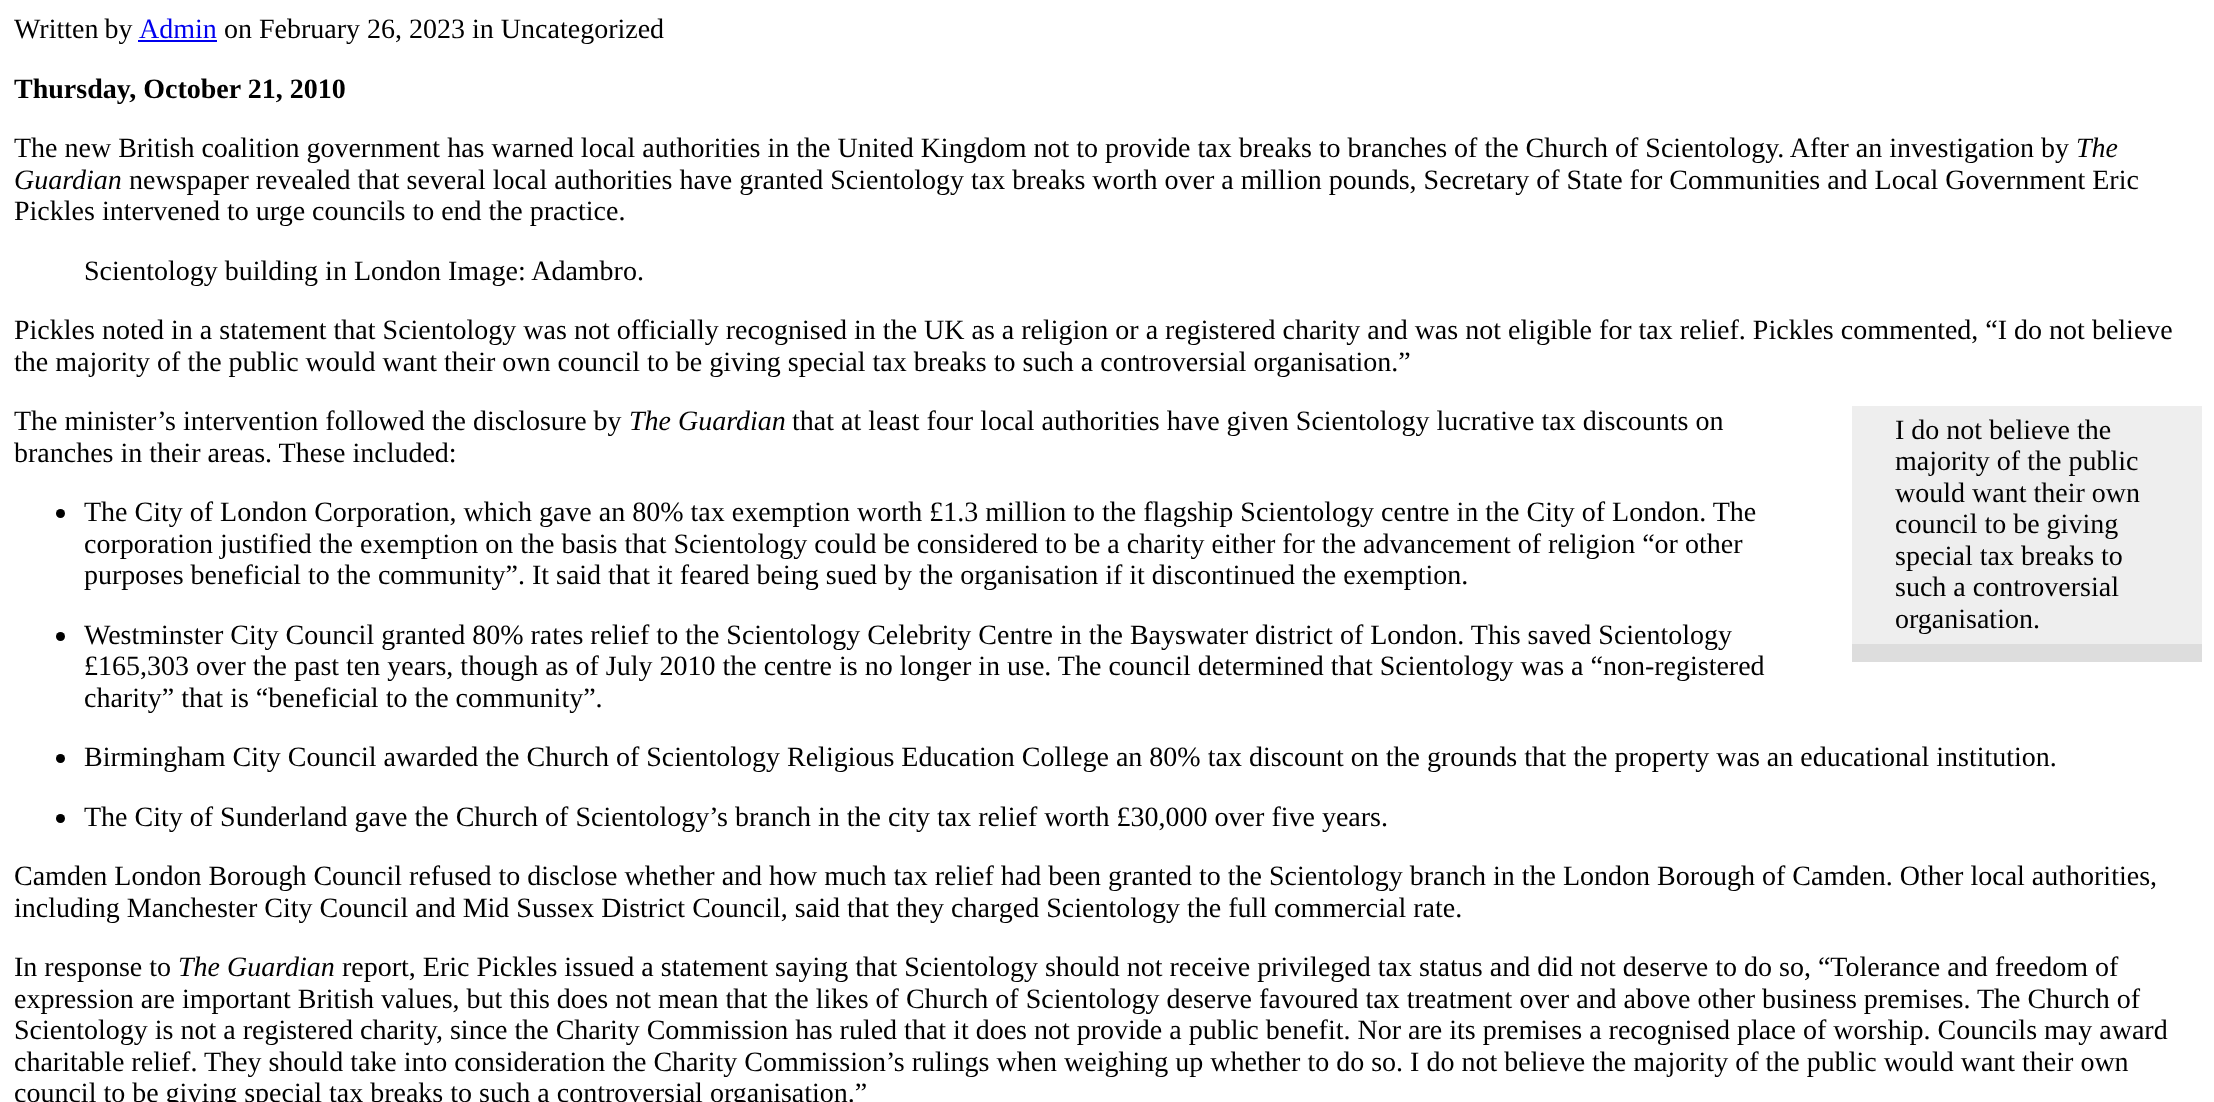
<svg xmlns="http://www.w3.org/2000/svg" width="2214" height="1102" viewBox="0 0 2214 1102">
  <rect width="100%" height="100%" fill="#fff"/>
  <path d="M138 40h79v2H138z" fill="#00e"/>
  <path d="M1852 406h350v238H1852z" fill="#eee"/>
  <path d="M1852 644h350v18H1852z" fill="#ddd"/>
  <circle cx="60.5" cy="513.5" r="4.5" fill="#000"/>
  <circle cx="60.5" cy="636.5" r="4.5" fill="#000"/>
  <circle cx="60.5" cy="758.5" r="4.5" fill="#000"/>
  <circle cx="60.5" cy="818.5" r="4.5" fill="#000"/>
  <text x="14" y="38" word-spacing="-1" font-family="Liberation Serif" font-size="28" fill="#000">Written by</text>
  <text x="139" y="38" font-family="Liberation Serif" font-size="28" fill="#00e">Admin</text>
  <text x="224" y="38" font-family="Liberation Serif" font-size="28" fill="#000">on February 26, 2023 in Uncategorized</text>
  <text x="14" y="98" font-family="Liberation Serif" font-size="28" font-weight="bold" fill="#000">Thursday, October 21, 2010</text>
  <text x="14" y="157" font-family="Liberation Serif" font-size="28" fill="#000">The new British coalition government has warned local authorities in the United Kingdom not to provide tax breaks to branches of the Church of Scientology. After an investigation by</text>
  <g font-family="Liberation Serif" font-size="28" font-style="italic" fill="#000">
    <text x="2076" y="157">The</text>
    <text x="14" y="189">Guardian</text>
  </g>
  <g font-family="Liberation Serif" font-size="28" fill="#000">
    <text x="129" y="189">newspaper revealed that several local authorities have granted Scientology tax breaks worth over a million pounds, Secretary of State for Communities and Local Government Eric</text>
    <text x="14" y="220">Pickles intervened to urge councils to end the practice.</text>
    <text x="84" y="280">Scientology building in London Image: Adambro.</text>
    <text x="14" y="339">Pickles noted in a statement that Scientology was not officially recognised in the UK as a religion or a registered charity and was not eligible for tax relief. Pickles commented, “I do not believe</text>
    <text x="14" y="371">the majority of the public would want their own council to be giving special tax breaks to such a controversial organisation.”</text>
    <text x="14" y="430">The minister’s intervention followed the disclosure by</text>
  </g>
  <text x="629" y="430" font-family="Liberation Serif" font-size="28" font-style="italic" fill="#000">The Guardian</text>
  <g font-family="Liberation Serif" font-size="28" fill="#000">
    <text x="792" y="430">that at least four local authorities have given Scientology lucrative tax discounts on</text>
    <text x="14" y="462">branches in their areas. These included:</text>
    <text x="1895" y="439">I do not believe the</text>
    <text x="1895" y="470">majority of the public</text>
    <text x="1895" y="502">would want their own</text>
    <text x="1895" y="533">council to be giving</text>
    <text x="1895" y="565">special tax breaks to</text>
    <text x="1895" y="596">such a controversial</text>
    <text x="1895" y="628">organisation.</text>
    <text x="84" y="521">The City of London Corporation, which gave an 80% tax exemption worth £1.3 million to the flagship Scientology centre in the City of London. The</text>
    <text x="84" y="553">corporation justified the exemption on the basis that Scientology could be considered to be a charity either for the advancement of religion “or other</text>
    <text x="84" y="584">purposes beneficial to the community”. It said that it feared being sued by the organisation if it discontinued the exemption.</text>
    <text x="84" y="644">Westminster City Council granted 80% rates relief to the Scientology Celebrity Centre in the Bayswater district of London. This saved Scientology</text>
    <text x="84" y="675">£165,303 over the past ten years, though as of July 2010 the centre is no longer in use. The council determined that Scientology was a “non-registered</text>
    <text x="84" y="707">charity” that is “beneficial to the community”.</text>
    <text x="84" y="766">Birmingham City Council awarded the Church of Scientology Religious Education College an 80% tax discount on the grounds that the property was an educational institution.</text>
    <text x="84" y="826">The City of Sunderland gave the Church of Scientology’s branch in the city tax relief worth £30,000 over five years.</text>
    <text x="14" y="885">Camden London Borough Council refused to disclose whether and how much tax relief had been granted to the Scientology branch in the London Borough of Camden. Other local authorities,</text>
    <text x="14" y="917">including Manchester City Council and Mid Sussex District Council, said that they charged Scientology the full commercial rate.</text>
    <text x="14" y="976">In response to</text>
  </g>
  <text x="178" y="976" font-family="Liberation Serif" font-size="28" font-style="italic" fill="#000">The Guardian</text>
  <g font-family="Liberation Serif" font-size="28" fill="#000">
    <text x="342" y="976">report, Eric Pickles issued a statement saying that Scientology should not receive privileged tax status and did not deserve to do so, “Tolerance and freedom of</text>
    <text x="14" y="1008">expression are important British values, but this does not mean that the likes of Church of Scientology deserve favoured tax treatment over and above other business premises. The Church of</text>
    <text x="14" y="1039">Scientology is not a registered charity, since the Charity Commission has ruled that it does not provide a public benefit. Nor are its premises a recognised place of worship. Councils may award</text>
    <text x="14" y="1071">charitable relief. They should take into consideration the Charity Commission’s rulings when weighing up whether to do so. I do not believe the majority of the public would want their own</text>
    <text x="14" y="1102">council to be giving special tax breaks to such a controversial organisation.”</text>
  </g>
</svg>
